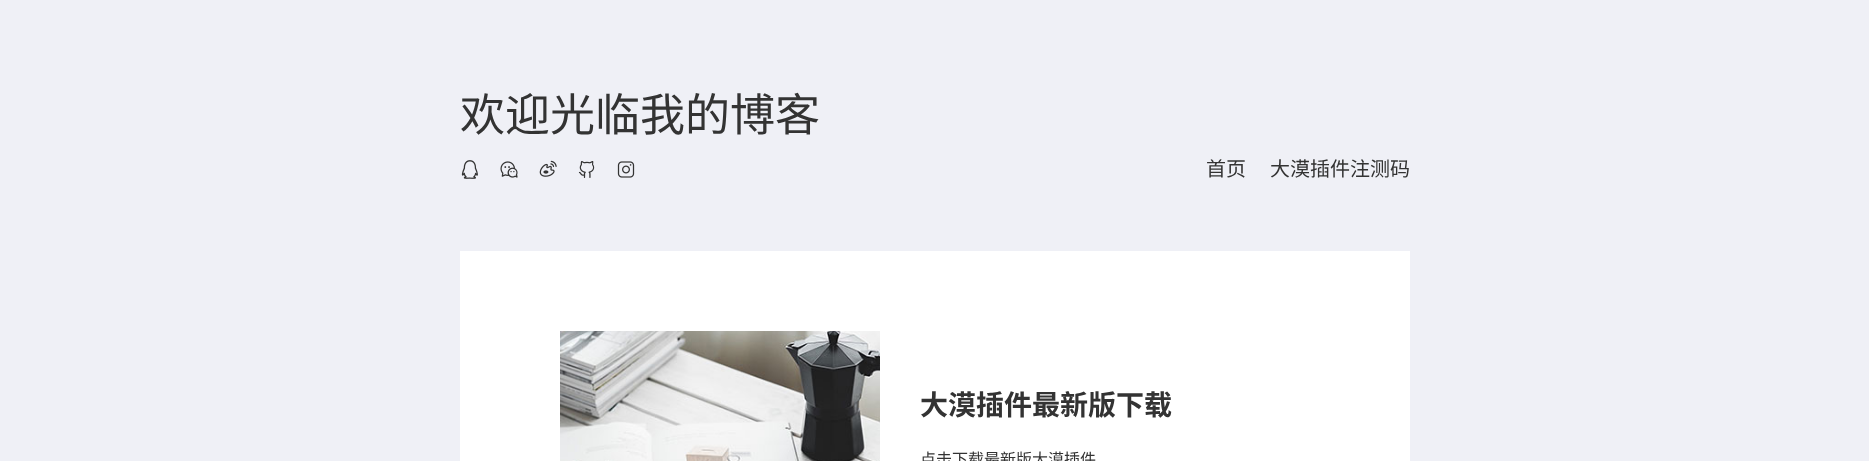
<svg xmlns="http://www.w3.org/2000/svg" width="1869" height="461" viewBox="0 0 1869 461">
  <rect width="100%" height="100%" fill="#eff0f6"/>
  <image x="461" y="160" width="17" height="19" href="img/1.png"/>
  <image x="500" y="161" width="18" height="17" href="img/2.png"/>
  <image x="539" y="160" width="18" height="17" href="img/3.png"/>
  <image x="578" y="161" width="17" height="17" href="img/4.png"/>
  <image x="617" y="161" width="18" height="17" href="img/5.png"/>
  <path d="M460 251h950v210H460z" fill="#fff"/>
  <image x="560" y="331" width="320" height="130" href="img/6.png"/>
  <text x="460" y="131" font-family="Noto Sans CJK SC" font-size="45" fill="#333">欢迎光临我的博客</text>
  <g font-family="Noto Sans CJK SC" font-size="20" fill="#333">
    <text x="1206" y="176">首页</text>
    <text x="1270" y="176">大漠插件注测码</text>
  </g>
  <text x="920" y="415" font-family="Noto Sans CJK SC" font-size="28" font-weight="bold" fill="#333">大漠插件最新版下载</text>
  <text x="920" y="465" font-family="Noto Sans CJK SC" font-size="16" fill="#333">点击下载最新版大漠插件</text>
</svg>
